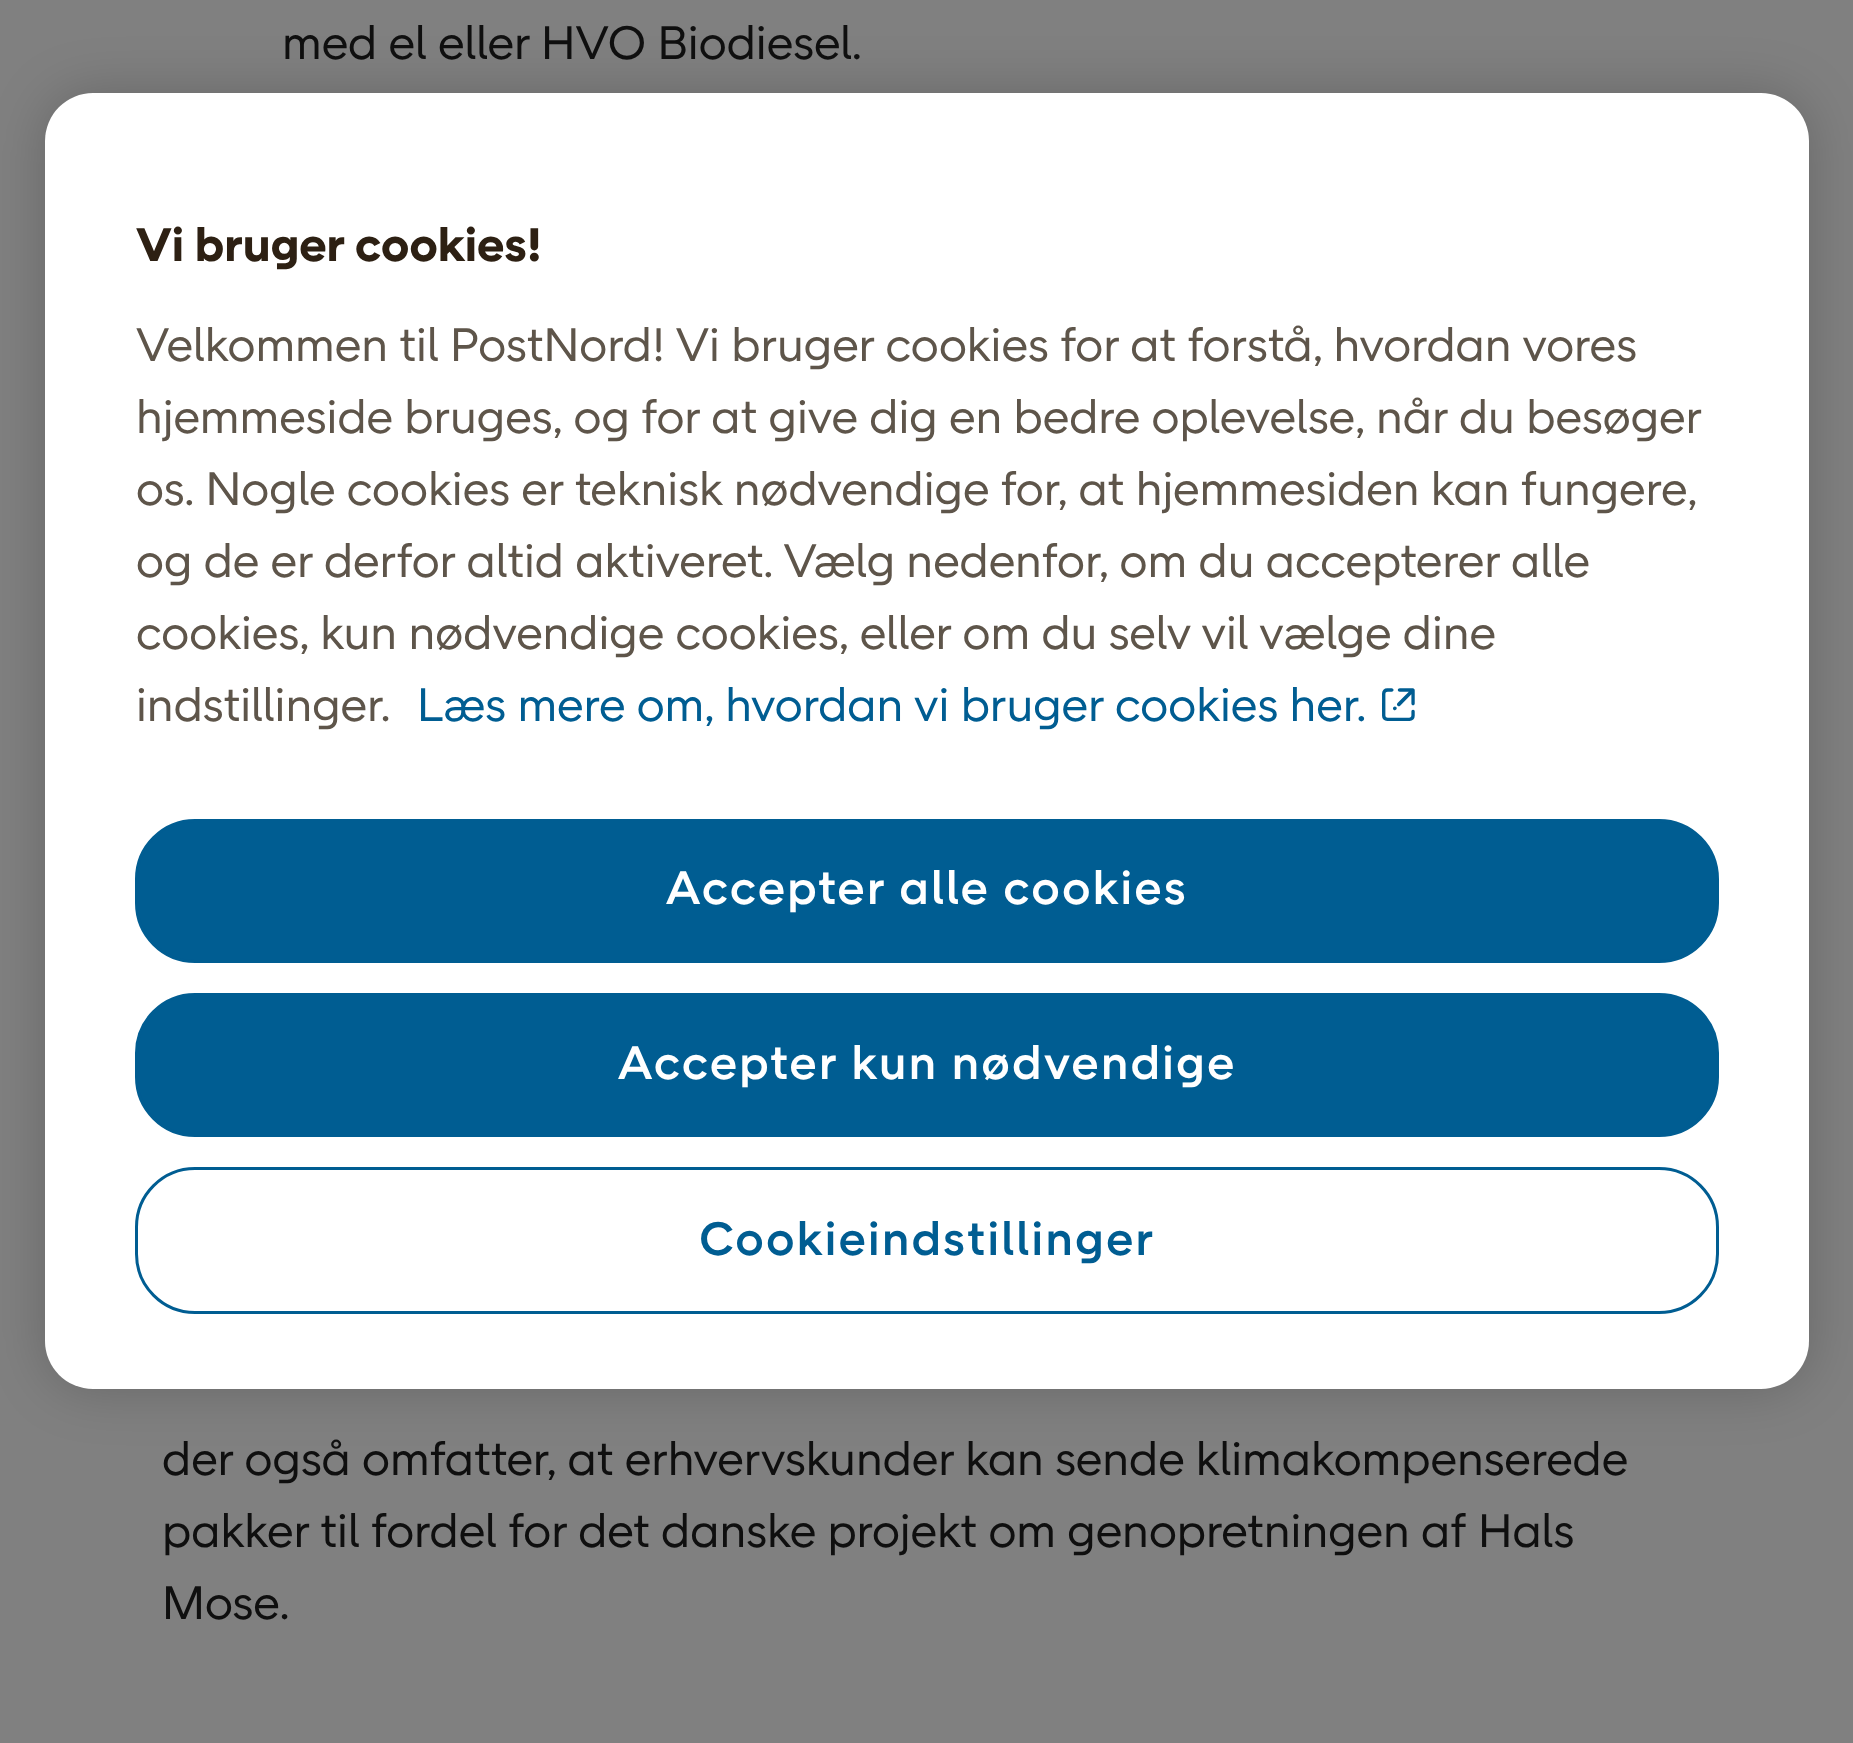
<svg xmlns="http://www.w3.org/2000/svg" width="1853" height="1743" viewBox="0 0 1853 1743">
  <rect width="100%" height="100%" fill="#808080"/>
  <rect x="45" y="93" width="1764" height="1296" rx="48" fill="#00000033" filter="blur(27px)"/>
  <rect x="45" y="93" width="1764" height="1296" rx="48" fill="#fff"/>
  <rect x="136.5" y="820.5" width="1581" height="141" rx="58.5" fill="#005d92" stroke="#005d92" stroke-width="3"/>
  <rect x="136.5" y="994.5" width="1581" height="141" rx="58.5" fill="#005d92" stroke="#005d92" stroke-width="3"/>
  <rect x="136.5" y="1168.5" width="1581" height="144" rx="58.5" fill="none" stroke="#005d92" stroke-width="3"/>
  <g font-family="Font" font-size="48" fill="#0f0f0f">
    <text x="282" y="59">med el eller HVO Biodiesel.</text>
    <text x="162" y="1475">der også omfatter, at erhvervskunder kan sende klimakompenserede</text>
    <text x="162" y="1547">pakker til fordel for det danske projekt om genopretningen af Hals</text>
    <text x="162" y="1619">Mose.</text>
  </g>
  <text x="136" y="261" font-family="Font" font-size="48" font-weight="bold" fill="#2d2013">Vi bruger cookies!</text>
  <g font-family="Font" font-size="48" fill="#5e554a">
    <text x="136" y="361">Velkommen til PostNord! Vi bruger cookies for at forstå, hvordan vores</text>
    <text x="136" y="433">hjemmeside bruges, og for at give dig en bedre oplevelse, når du besøger</text>
    <text x="136" y="505">os. Nogle cookies er teknisk nødvendige for, at hjemmesiden kan fungere,</text>
    <text x="136" y="577">og de er derfor altid aktiveret. Vælg nedenfor, om du accepterer alle</text>
    <text x="136" y="649">cookies, kun nødvendige cookies, eller om du selv vil vælge dine</text>
    <text x="136" y="721">indstillinger.</text>
  </g>
  <g font-family="Font" font-size="48" fill="#005d92">
    <text x="417" y="721">Læs mere om, hvordan vi bruger cookies her.</text>
    <text x="1378" y="721">➚</text>
  </g>
  <g font-family="Font" font-size="48" font-weight="500" letter-spacing="2.4" fill="#fff">
    <text x="666" y="904">Accepter alle cookies</text>
    <text x="618" y="1079">Accepter kun nødvendige</text>
  </g>
  <text x="699" y="1255" font-family="Font" font-size="48" font-weight="500" letter-spacing="2.4" fill="#005d92">Cookieindstillinger</text>
</svg>
